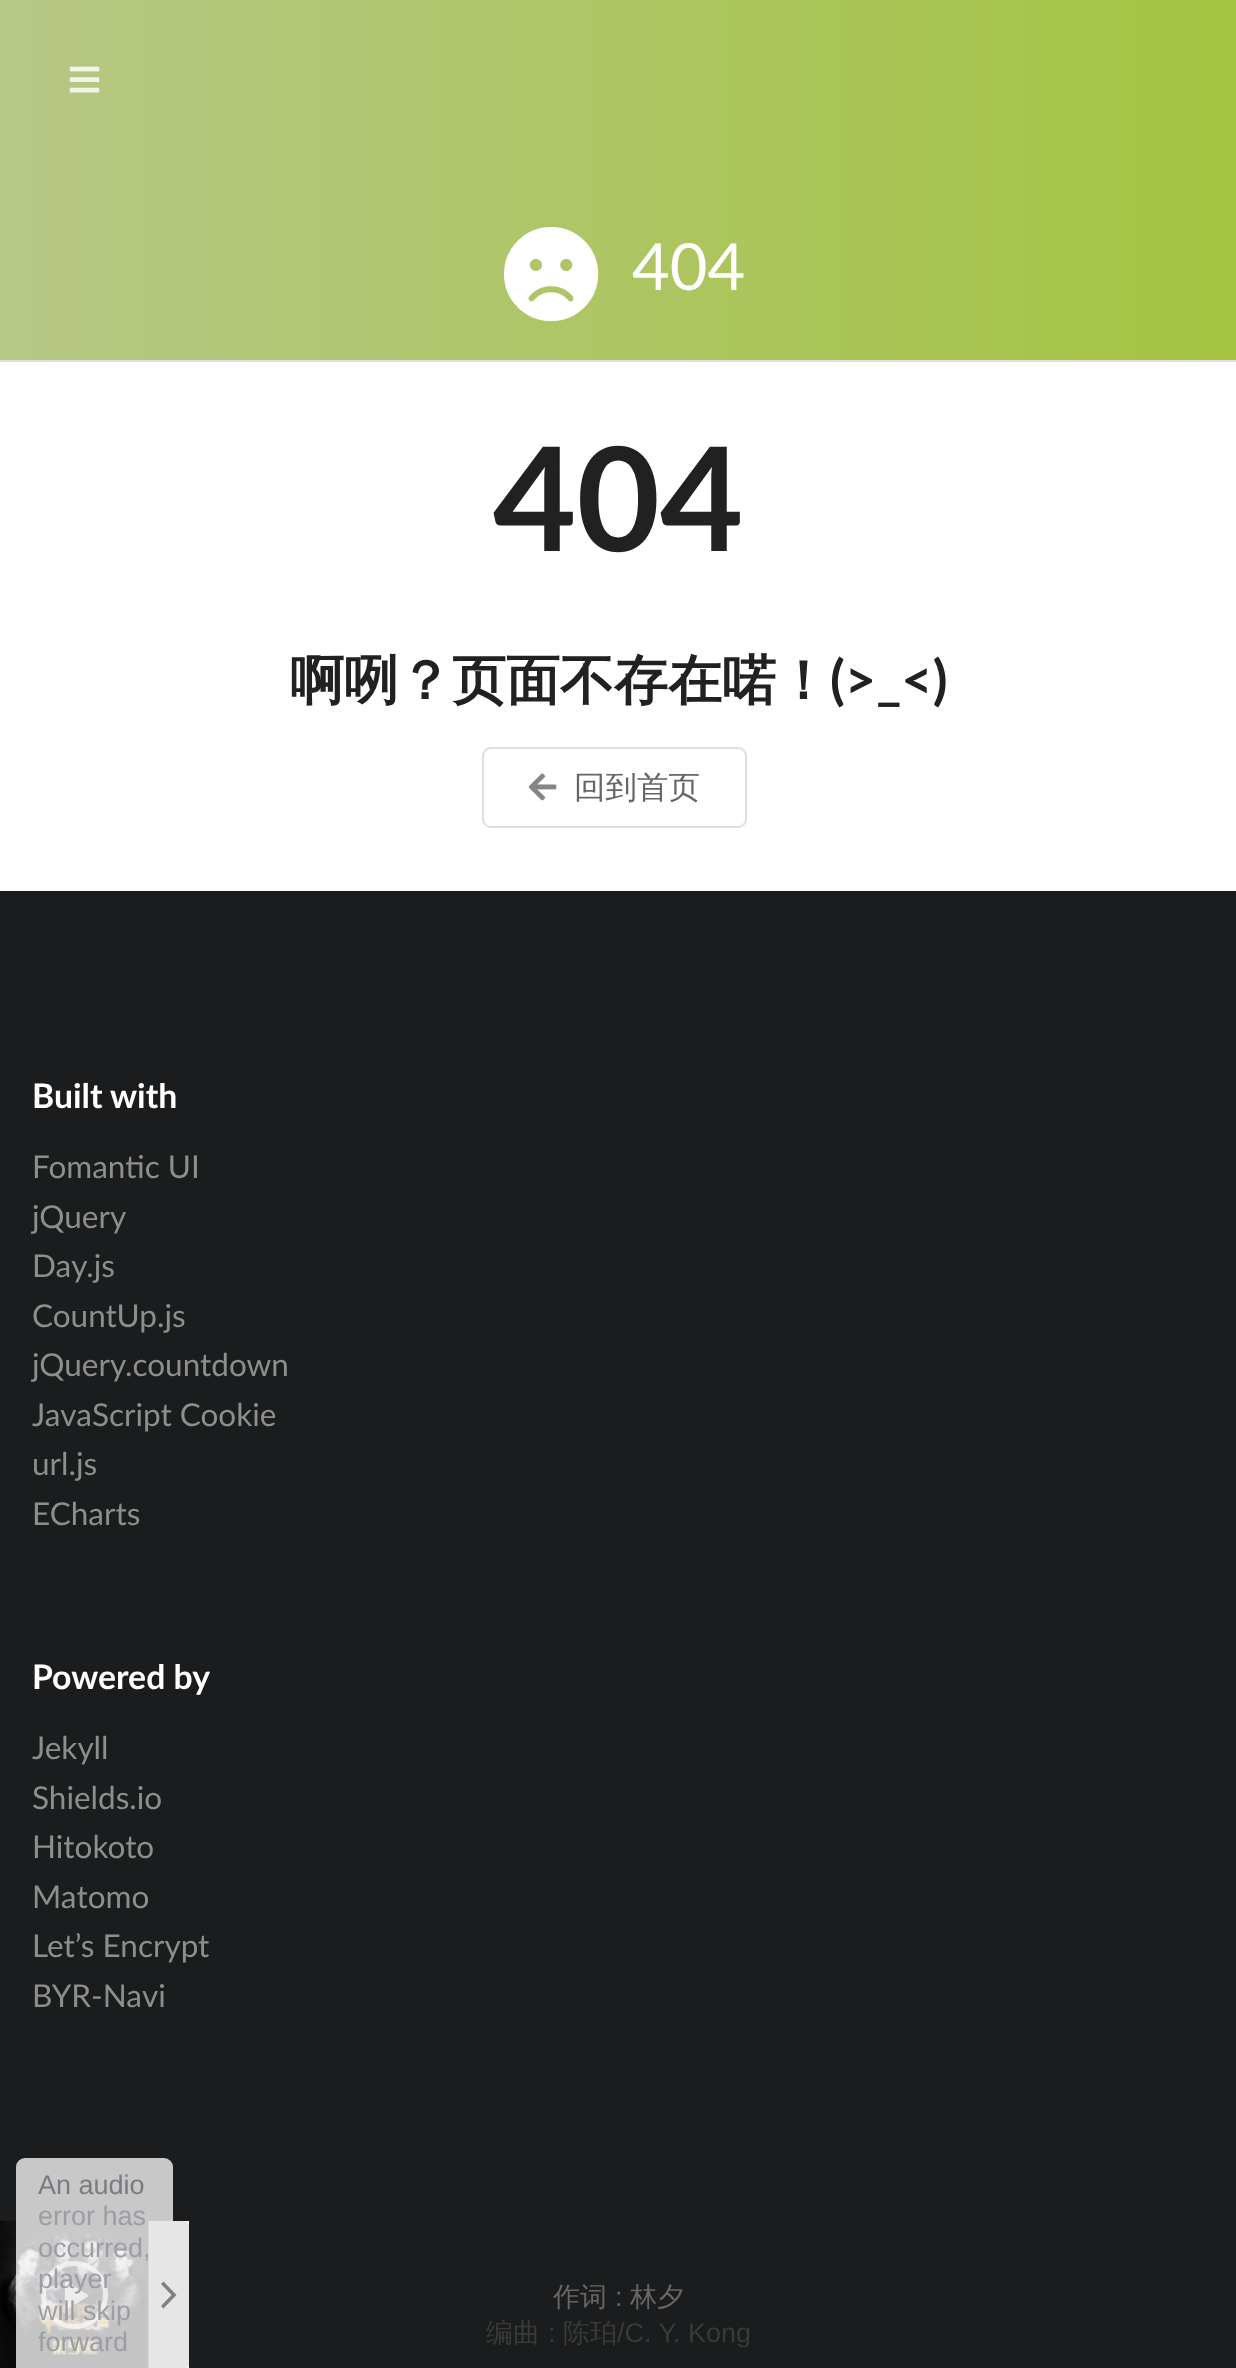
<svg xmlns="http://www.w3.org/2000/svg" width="1236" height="2368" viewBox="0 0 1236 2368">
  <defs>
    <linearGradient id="g1" gradientUnits="userSpaceOnUse" x1="0" y1="180" x2="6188" y2="180"><stop offset="0" stop-color="#b7c786"/><stop offset="0.2" stop-color="#a4c441"/><stop offset="0.4" stop-color="#3ac28b"/><stop offset="0.6" stop-color="#5595b3"/><stop offset="0.8" stop-color="#b7c786"/><stop offset="1" stop-color="#a4c441"/></linearGradient>
    <clipPath id="clip1"><path d="M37 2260H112V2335H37ZM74.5 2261C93 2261 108 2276 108 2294.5V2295.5C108 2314 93 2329 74.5 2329C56 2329 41 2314 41 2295.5V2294.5C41 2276 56 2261 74.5 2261Z" clip-rule="evenodd"/></clipPath>
    <clipPath id="clip2"><path d="M0 2315h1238v32H0z"/></clipPath>
  </defs>
  <rect width="100%" height="100%" fill="#fff"/>
  <path d="M0 0h1236v360H0z" fill="url(#g1)"/>
  <image x="69" y="66" width="31" height="27" href="img/1.png"/>
  <image x="504" y="227" width="95" height="95" href="img/2.png"/>
  <path d="M0 360h1236v2H0z" fill="#dedede"/>
  <rect x="483" y="748" width="263" height="79" rx="8" fill="none" stroke="#dedede" stroke-width="2"/>
  <image x="528" y="773" width="29" height="28" href="img/3.png"/>
  <path d="M0 891h1236v1477H0z" fill="#1b1c1d"/>
  <path d="M184 2221h5v147H184z" fill="#fff"/>
  <path d="M148 2221h1v147H148z" fill="#b7daff"/>
  <image x="0" y="2220" width="149" height="148" href="img/4.png"/>
  <g clip-path="url(#clip1)">
    <rect x="41" y="2264" width="67" height="67" rx="33.5" fill="#00000029" filter="blur(1px)"/>
  </g>
  <rect x="41" y="2261" width="67" height="68" rx="33.5" fill="#00000029"/>
  <rect x="43.5" y="2263.5" width="62" height="63" rx="31" fill="none" stroke="#ffffffcc" stroke-width="5"/>
  <image x="64" y="2281" width="25" height="29" href="img/5.png"/>
  <rect x="16" y="2158" width="157" height="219" rx="9" fill="#f4f4f5cc"/>
  <path d="M149 2221H184C187 2221 189 2223 189 2226V2364C189 2367 187 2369 184 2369H149Z" fill="#e6e6e6"/>
  <path d="M176.5 2295L163.5 2281.5L161 2284L171.5 2295L161 2306L163.5 2308.5L174 2297.5Z" fill="#808080"/>
  <text x="632" y="290" font-family="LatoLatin" font-size="65" fill="#fff">404</text>
  <text x="493" y="551" font-family="LatoLatin" font-size="144" font-weight="bold" fill="#212121">404</text>
  <text x="290" y="699" font-family="WenQuanYi Zen Hei" font-size="54" font-weight="bold" fill="#212121">啊咧？页面不存在喏！</text>
  <text x="830" y="699" font-family="LatoLatin" font-size="54" font-weight="bold" fill="#212121">(&gt;_&lt;)</text>
  <text x="574" y="798" font-family="WenQuanYi Zen Hei" font-size="31.5" font-weight="500" fill="#666">回到首页</text>
  <text x="32" y="1108" font-family="LatoLatin" font-size="33.75" font-weight="bold" fill="#fff">Built with</text>
  <g font-family="LatoLatin" font-size="31.5" fill="#8d8e8e">
    <text x="32" y="1178">Fomantic UI</text>
    <text x="32" y="1228">jQuery</text>
    <text x="32" y="1277">Day.js</text>
    <text x="32" y="1327">CountUp.js</text>
    <text x="32" y="1376">jQuery.countdown</text>
    <text x="32" y="1426">JavaScript Cookie</text>
    <text x="32" y="1475">url.js</text>
    <text x="32" y="1525">ECharts</text>
  </g>
  <text x="32" y="1689" font-family="LatoLatin" font-size="33.75" font-weight="bold" fill="#fff">Powered by</text>
  <g font-family="LatoLatin" font-size="31.5" fill="#8d8e8e">
    <text x="32" y="1759">Jekyll</text>
    <text x="32" y="1809">Shields.io</text>
    <text x="32" y="1858">Hitokoto</text>
    <text x="32" y="1908">Matomo</text>
    <text x="32" y="1957">Let’s Encrypt</text>
    <text x="32" y="2007">BYR-Navi</text>
  </g>
  <text x="38" y="2194" font-family="Liberation Sans" font-size="27" fill="#797b80">An audio</text>
  <g font-family="Liberation Sans" font-size="27" fill="#9b9ea3">
    <text x="38" y="2225">error has</text>
    <text x="38" y="2257">occurred,</text>
    <text x="38" y="2288">player</text>
    <text x="38" y="2320">will skip</text>
    <text x="38" y="2351">forward</text>
  </g>
  <text x="553" y="2306" font-family="WenQuanYi Zen Hei" font-size="27" font-weight="500" fill="#666">作词</text>
  <text x="615" y="2306" font-family="Liberation Sans" font-size="27" fill="#666">:</text>
  <text x="630" y="2306" font-family="WenQuanYi Zen Hei" font-size="27" font-weight="500" fill="#666">林夕</text>
  <text x="486" y="2342" font-family="WenQuanYi Zen Hei" font-size="27" font-weight="500" fill="#393a3a">编曲</text>
  <text x="548" y="2342" font-family="Liberation Sans" font-size="27" fill="#393a3a">:</text>
  <text x="563" y="2342" font-family="WenQuanYi Zen Hei" font-size="27" font-weight="500" fill="#393a3a">陈珀</text>
  <g clip-path="url(#clip2)">
    <text x="617" y="2342" font-family="Liberation Sans" font-size="27" fill="#393a3a">/C. Y. Kong</text>
  </g>
</svg>
